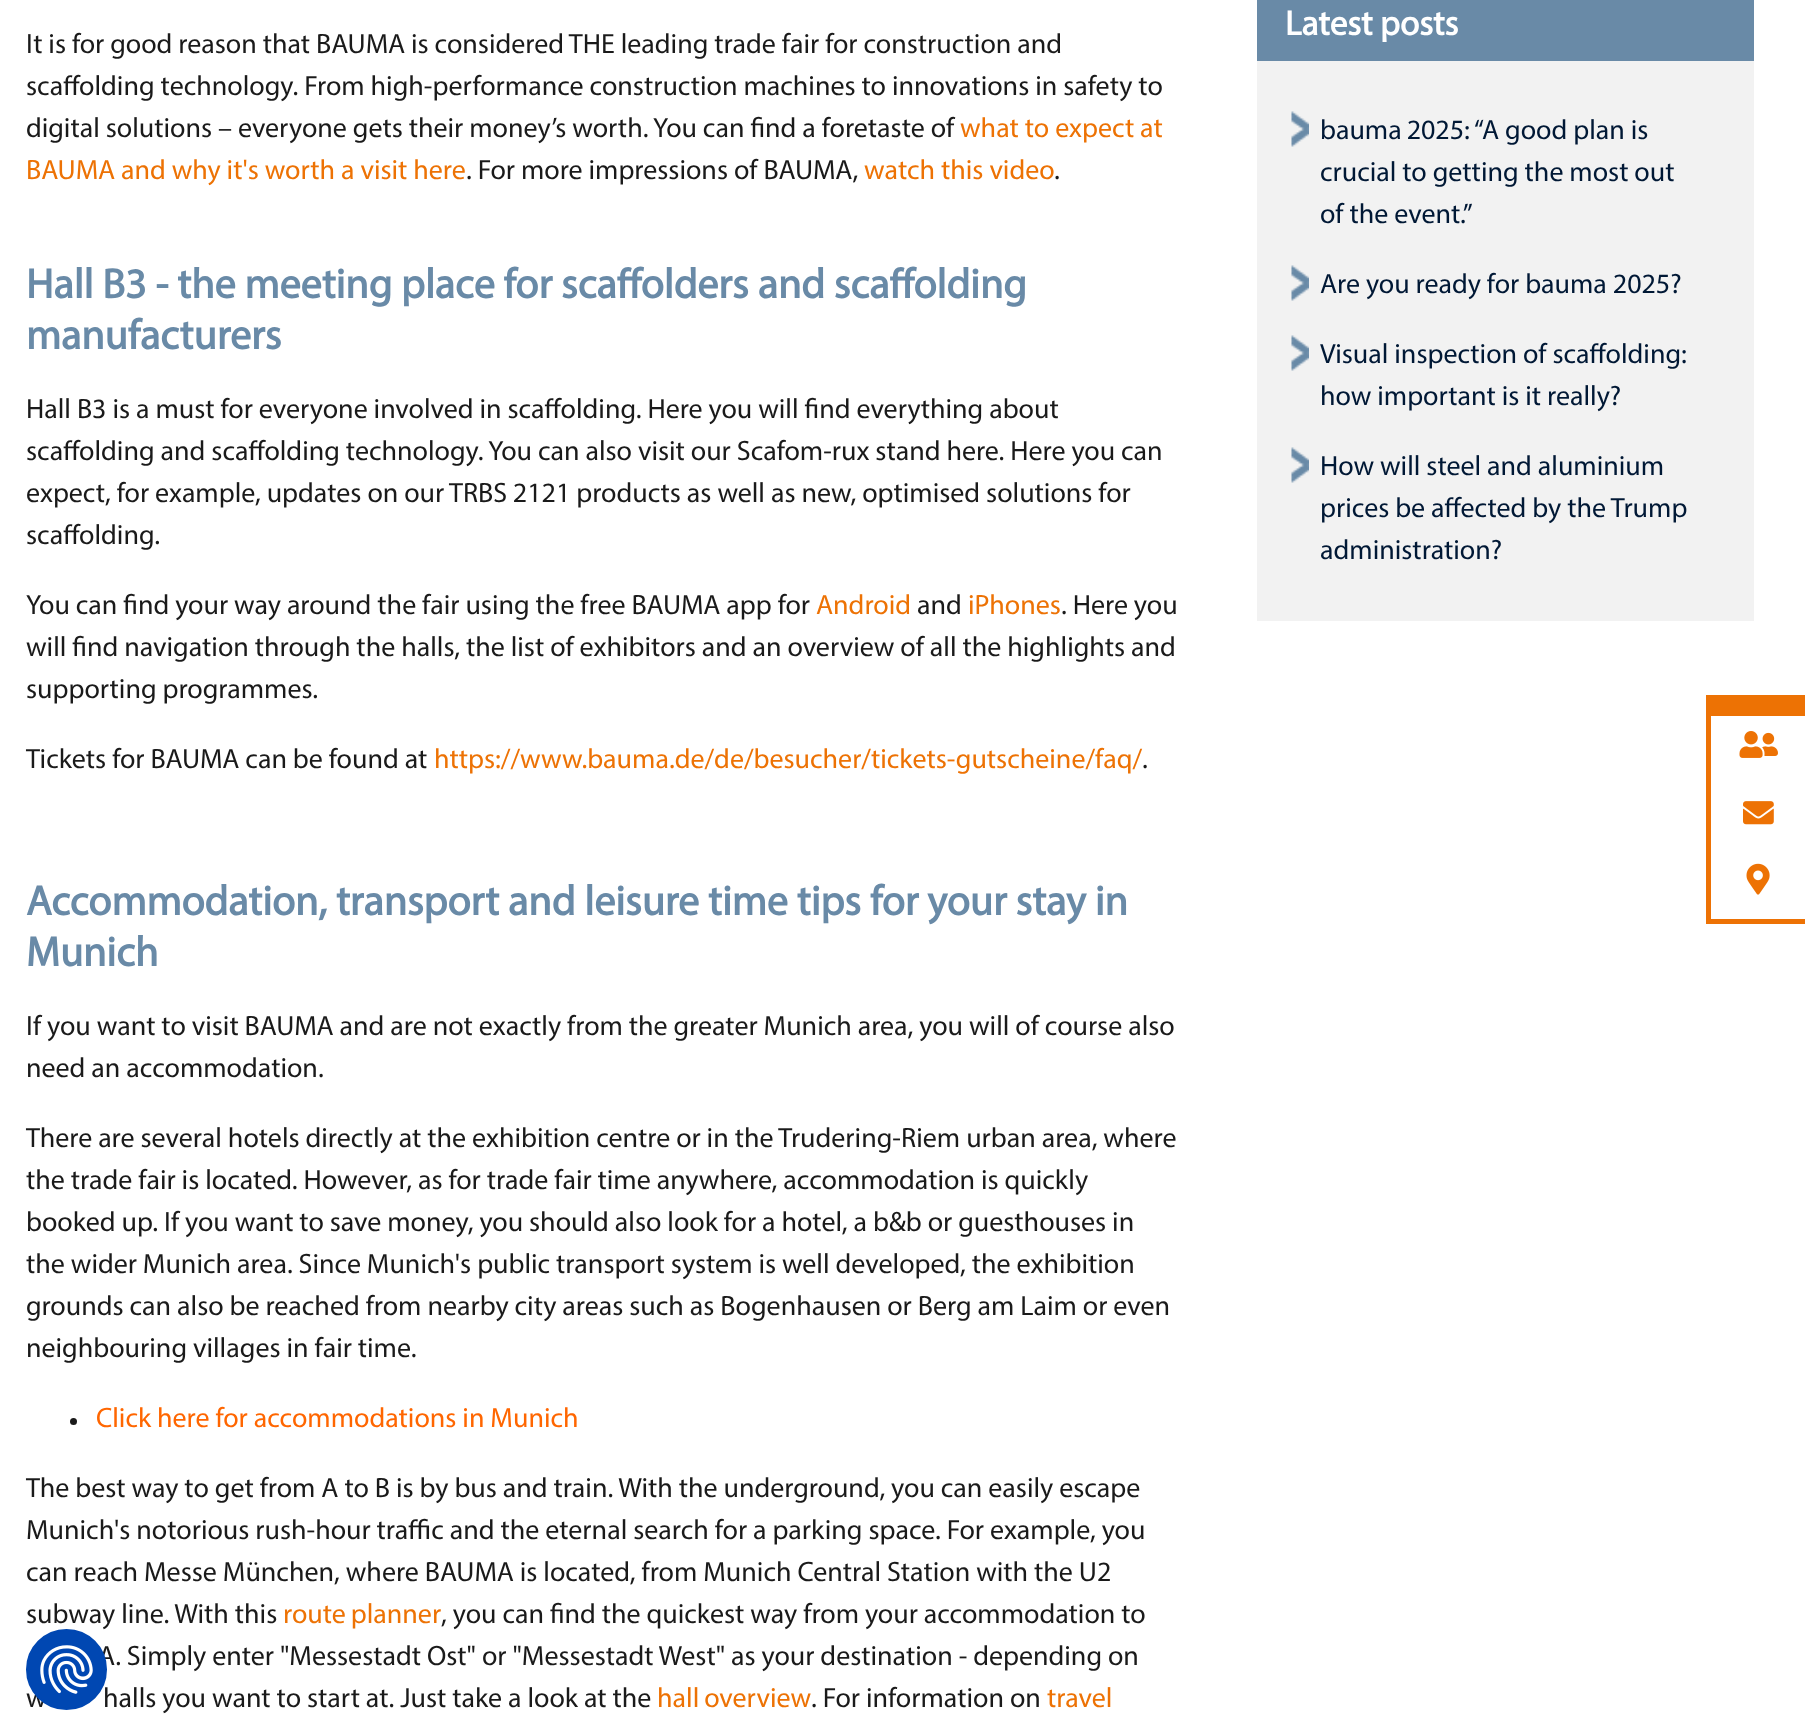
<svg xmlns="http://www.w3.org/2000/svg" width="1805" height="1736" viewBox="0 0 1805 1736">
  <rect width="100%" height="100%" fill="#fff"/>
  <circle cx="73.5" cy="1421.5" r="3.5" fill="#1a1a1a"/>
  <path d="M1257 61h497v560H1257z" fill="#f2f2f2"/>
  <path d="M1257 0h497v61H1257z" fill="#698aa7"/>
  <image x="1291" y="111" width="18" height="36" href="img/1.png"/>
  <image x="1291" y="265" width="18" height="36" href="img/1.png"/>
  <image x="1291" y="335" width="18" height="36" href="img/1.png"/>
  <image x="1291" y="447" width="18" height="36" href="img/1.png"/>
  <path d="M1711 695h94v21H1711z" fill="#ed7204"/>
  <path d="M1706 919h99v5H1706z" fill="#ed7204"/>
  <path d="M1706 695h5v229H1706z" fill="#ed7204"/>
  <image x="1739" y="731" width="39" height="27" href="img/2.png"/>
  <image x="1743" y="801" width="31" height="24" href="img/3.png"/>
  <image x="1746" y="863" width="24" height="32" href="img/4.png"/>
  <g font-family="Myriad" font-size="28" fill="#1a1a1a">
    <text x="26" y="53">It is for good reason that BAUMA is considered THE leading trade fair for construction and</text>
    <text x="26" y="95">scaffolding technology. From high-performance construction machines to innovations in safety to</text>
    <text x="26" y="137">digital solutions – everyone gets their money’s worth. You can find a foretaste of</text>
  </g>
  <g font-family="Myriad" font-size="28" fill="#ed7204">
    <text x="960" y="137">what to expect at</text>
    <text x="26" y="179">BAUMA and why it's worth a visit here</text>
  </g>
  <text x="466" y="179" font-family="Myriad" font-size="28" fill="#1a1a1a">. For more impressions of BAUMA,</text>
  <text x="864" y="179" font-family="Myriad" font-size="28" fill="#ed7204">watch this video</text>
  <text x="1054" y="179" font-family="Myriad" font-size="28" fill="#1a1a1a">.</text>
  <g font-family="Myriad" font-size="42" font-weight="bold" fill="#698aa7">
    <text x="26" y="298">Hall B3 - the meeting place for scaffolders and scaffolding</text>
    <text x="26" y="349">manufacturers</text>
  </g>
  <g font-family="Myriad" font-size="28" fill="#1a1a1a">
    <text x="26" y="418">Hall B3 is a must for everyone involved in scaffolding. Here you will find everything about</text>
    <text x="26" y="460">scaffolding and scaffolding technology. You can also visit our Scafom-rux stand here. Here you can</text>
    <text x="26" y="502">expect, for example, updates on our TRBS 2121 products as well as new, optimised solutions for</text>
    <text x="26" y="544">scaffolding.</text>
    <text x="26" y="614">You can find your way around the fair using the free BAUMA app for</text>
  </g>
  <text x="816" y="614" font-family="Myriad" font-size="28" fill="#ed7204">Android</text>
  <text x="917" y="614" font-family="Myriad" font-size="28" fill="#1a1a1a">and</text>
  <text x="968" y="614" font-family="Myriad" font-size="28" fill="#ed7204">iPhones</text>
  <g font-family="Myriad" font-size="28" fill="#1a1a1a">
    <text x="1061" y="614">. Here you</text>
    <text x="26" y="656">will find navigation through the halls, the list of exhibitors and an overview of all the highlights and</text>
    <text x="26" y="698">supporting programmes.</text>
    <text x="26" y="768">Tickets for BAUMA can be found at</text>
  </g>
  <text x="434" y="768" font-family="Myriad" font-size="28" fill="#ed7204">https://www.bauma.de/de/besucher/tickets-gutscheine/faq/</text>
  <text x="1142" y="768" font-family="Myriad" font-size="28" fill="#1a1a1a">.</text>
  <g font-family="Myriad" font-size="42" font-weight="bold" fill="#698aa7">
    <text x="26" y="915">Accommodation, transport and leisure time tips for your stay in</text>
    <text x="26" y="966">Munich</text>
  </g>
  <g font-family="Myriad" font-size="28" fill="#1a1a1a">
    <text x="26" y="1035">If you want to visit BAUMA and are not exactly from the greater Munich area, you will of course also</text>
    <text x="26" y="1077">need an accommodation.</text>
    <text x="26" y="1147">There are several hotels directly at the exhibition centre or in the Trudering-Riem urban area, where</text>
    <text x="26" y="1189">the trade fair is located. However, as for trade fair time anywhere, accommodation is quickly</text>
    <text x="26" y="1231">booked up. If you want to save money, you should also look for a hotel, a b&amp;b or guesthouses in</text>
    <text x="26" y="1273">the wider Munich area. Since Munich's public transport system is well developed, the exhibition</text>
    <text x="26" y="1315">grounds can also be reached from nearby city areas such as Bogenhausen or Berg am Laim or even</text>
    <text x="26" y="1357">neighbouring villages in fair time.</text>
  </g>
  <text x="96" y="1427" font-family="Myriad" font-size="28" fill="#f60">Click here for accommodations in Munich</text>
  <g font-family="Myriad" font-size="28" fill="#1a1a1a">
    <text x="26" y="1497">The best way to get from A to B is by bus and train. With the underground, you can easily escape</text>
    <text x="26" y="1539">Munich's notorious rush-hour traffic and the eternal search for a parking space. For example, you</text>
    <text x="26" y="1581">can reach Messe München, where BAUMA is located, from Munich Central Station with the U2</text>
    <text x="26" y="1623">subway line. With this</text>
  </g>
  <text x="283" y="1623" word-spacing="-1" font-family="Myriad" font-size="28" fill="#ed7204">route planner</text>
  <g font-family="Myriad" font-size="28" fill="#1a1a1a">
    <text x="441" y="1623">, you can find the quickest way from your accommodation to</text>
    <text x="98" y="1665">A. Simply enter "Messestadt Ost" or "Messestadt West" as your destination - depending on</text>
    <text x="26" y="1707">w</text>
    <text x="103" y="1707">halls you want to start at. Just take a look at the</text>
  </g>
  <text x="657" y="1707" word-spacing="-1" font-family="Myriad" font-size="28" fill="#ed7204">hall overview</text>
  <text x="811" y="1707" font-family="Myriad" font-size="28" fill="#1a1a1a">. For information on</text>
  <text x="1047" y="1707" font-family="Myriad" font-size="28" fill="#ed7204">travel</text>
  <text x="1285" y="35" font-family="Myriad" font-size="35" font-weight="bold" fill="#fff">Latest posts</text>
  <g font-family="Myriad" font-size="28" fill="#001835">
    <text x="1320" y="139" word-spacing="-1">bauma 2025:</text>
    <text x="1474" y="139">“A good plan is</text>
    <text x="1320" y="181">crucial to getting the most out</text>
    <text x="1320" y="223">of the event.”</text>
    <text x="1320" y="293">Are you ready for bauma 2025?</text>
    <text x="1320" y="363">Visual inspection of scaffolding:</text>
    <text x="1320" y="405">how important is it really?</text>
    <text x="1320" y="475">How will steel and aluminium</text>
    <text x="1320" y="517">prices be affected by the Trump</text>
    <text x="1320" y="559">administration?</text>
  </g>
  <circle cx="66.5" cy="1669.5" r="39.5" fill="#0047b2" stroke="#0047b2" stroke-width="2"/>
  <image x="40" y="1645" width="53" height="49" href="img/5.png"/>
</svg>
